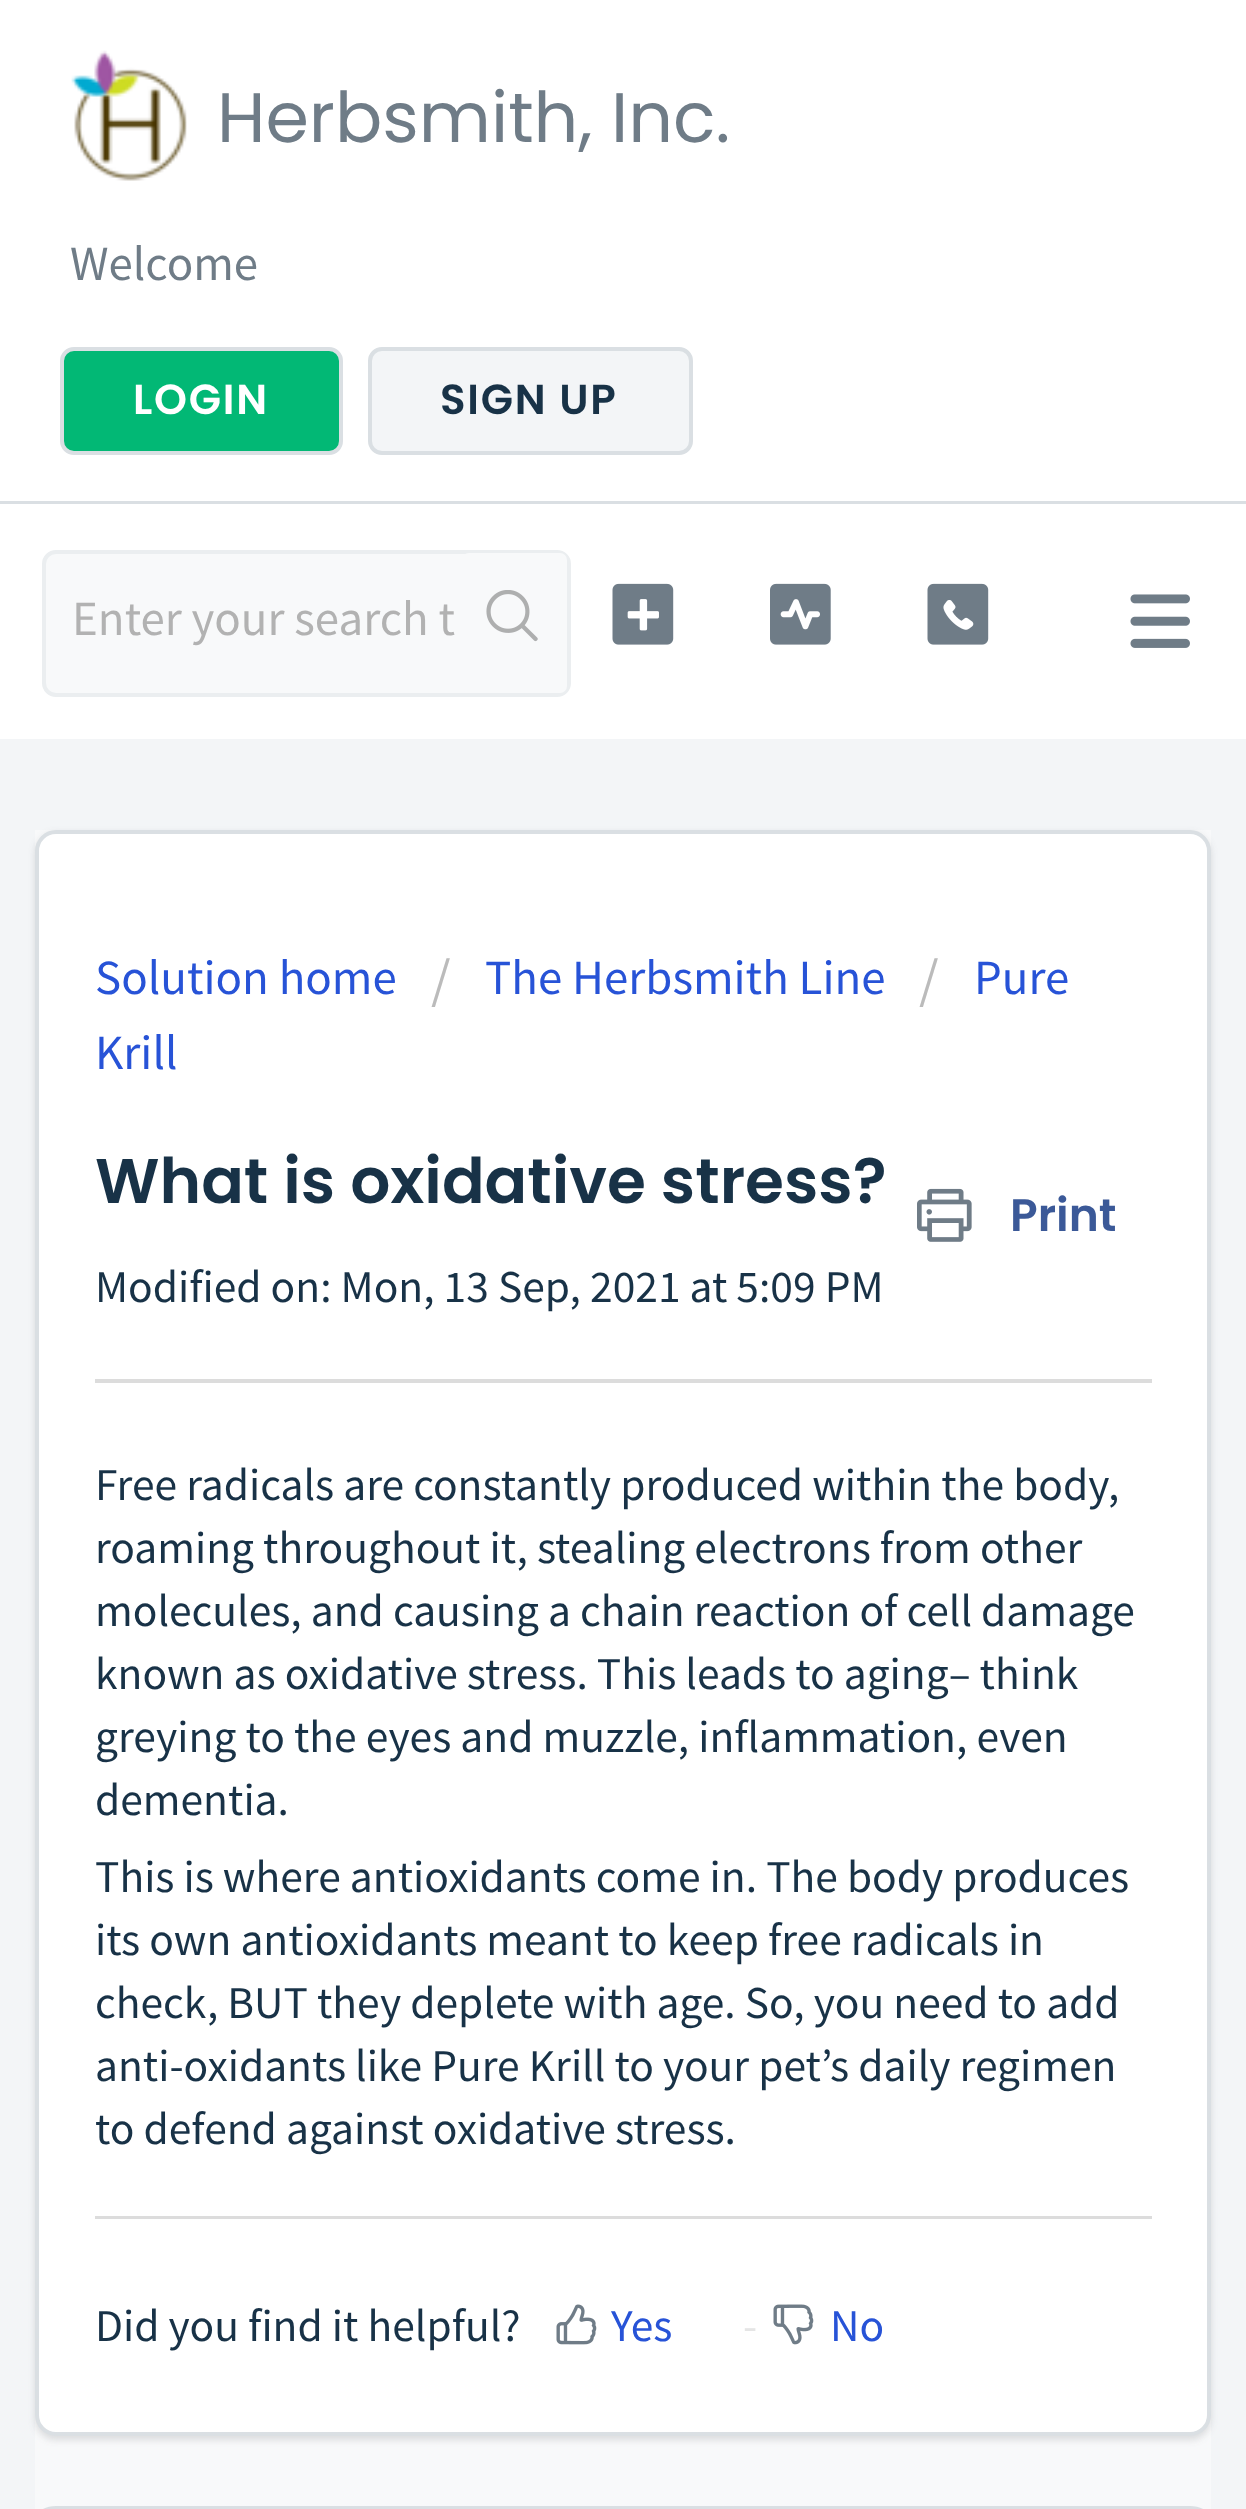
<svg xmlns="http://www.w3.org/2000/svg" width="1246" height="2509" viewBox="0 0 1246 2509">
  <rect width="100%" height="100%" fill="#f3f5f7"/>
  <path d="M0 0h1246v501H0z" fill="#fff"/>
  <path d="M0 501h1246v3H0z" fill="#dadfe3"/>
  <image x="71" y="50" width="116" height="131" href="img/1.png"/>
  <rect x="62" y="349" width="279" height="104" rx="12" fill="#02b875" stroke="#dadfe3" stroke-width="4"/>
  <rect x="370" y="349" width="321" height="104" rx="12" fill="#f3f5f7" stroke="#dadfe3" stroke-width="4"/>
  <path d="M0 504h1246v235H0z" fill="#fff"/>
  <image x="1130" y="594" width="60" height="54" href="img/2.png"/>
  <rect x="44" y="552" width="525" height="143" rx="12" fill="#f8f9fa" stroke="#ebeef0" stroke-width="4"/>
  <rect x="462" y="553" width="105" height="140" rx="7" fill="#f8f9fa"/>
  <image x="486" y="590" width="52" height="52" href="img/3.png"/>
  <image x="612" y="583" width="62" height="62" href="img/4.png"/>
  <image x="770" y="583" width="61" height="62" href="img/5.png"/>
  <image x="927" y="583" width="62" height="62" href="img/6.png"/>
  <path d="M35 830h1176v1679H35z" fill="#f8f9fa"/>
  <rect x="35" y="833" width="1176" height="1607" rx="21" fill="#3f3f4426" filter="blur(3.5px)"/>
  <rect x="37" y="832" width="1172" height="1602" rx="19" fill="#fff" stroke="#dadfe3" stroke-width="4"/>
  <image x="917" y="1188" width="55" height="54" href="img/7.png"/>
  <path d="M95 1379h1057v4H95z" fill="#dcdcdc"/>
  <path d="M95 2216h1057v3H95z" fill="#dcdcdc"/>
  <image x="556" y="2304" width="41" height="41" href="img/8.png"/>
  <image x="773" y="2304" width="41" height="41" href="img/9.png"/>
  <rect x="37" y="2508" width="1172" height="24" rx="19" fill="none" stroke="#dadfe3" stroke-width="4"/>
  <text x="217" y="142" font-family="Poppins" font-size="70" fill="#6f7c87">Herbsmith, Inc.</text>
  <text x="70" y="280" font-family="Source Sans Pro" font-size="49" fill="#6f7c87">Welcome</text>
  <text x="133" y="414" font-family="Poppins" font-size="42" font-weight="600" letter-spacing="1.75" fill="#fff">LOGIN</text>
  <text x="440" y="414" font-family="Poppins" font-size="42" font-weight="600" letter-spacing="1.75" fill="#183247">SIGN UP</text>
  <text x="72" y="635" font-family="Source Sans Pro" font-size="49" fill="#b2b2b2">Enter your search t</text>
  <text x="95" y="994" font-family="Source Sans Pro" font-size="49" fill="#2753d7">Solution home</text>
  <text x="431" y="998" font-family="Source Sans Pro" font-size="56" fill="#bbb">/</text>
  <text x="485" y="994" font-family="Source Sans Pro" font-size="49" fill="#2753d7">The Herbsmith Line</text>
  <text x="919" y="998" font-family="Source Sans Pro" font-size="56" fill="#bbb">/</text>
  <g font-family="Source Sans Pro" font-size="49" fill="#2753d7">
    <text x="974" y="994">Pure</text>
    <text x="95" y="1069">Krill</text>
  </g>
  <text x="95" y="1203" font-family="Poppins" font-size="63" font-weight="600" fill="#183247">What is oxidative stress?</text>
  <text x="1010" y="1231" font-family="Poppins" font-size="45.5" font-weight="600" fill="#3b5998">Print</text>
  <g font-family="Source Sans Pro" font-size="45.5" fill="#183247">
    <text x="95" y="1302">Modified on: Mon, 13 Sep, 2021 at 5:09 PM</text>
    <text x="95" y="1500">Free radicals are constantly produced within the body,</text>
    <text x="95" y="1563">roaming throughout it, stealing electrons from other</text>
    <text x="95" y="1626">molecules, and causing a chain reaction of cell damage</text>
    <text x="95" y="1689">known as oxidative stress. This leads to aging– think</text>
    <text x="95" y="1752">greying to the eyes and muzzle, inflammation, even</text>
    <text x="95" y="1815">dementia.</text>
    <text x="95" y="1892">This is where antioxidants come in. The body produces</text>
    <text x="95" y="1955">its own antioxidants meant to keep free radicals in</text>
    <text x="95" y="2018">check, BUT they deplete with age. So, you need to add</text>
    <text x="95" y="2081">anti-oxidants like Pure Krill to your pet’s daily regimen</text>
    <text x="95" y="2144">to defend against oxidative stress.</text>
    <text x="95" y="2341">Did you find it helpful?</text>
  </g>
  <text x="611" y="2341" font-family="Source Sans Pro" font-size="45.5" fill="#2753d7">Yes</text>
  <text x="743" y="2341" font-family="Source Sans Pro" font-size="45.5" fill="#e5e5e5">-</text>
  <text x="830" y="2341" font-family="Source Sans Pro" font-size="45.5" fill="#2753d7">No</text>
</svg>
